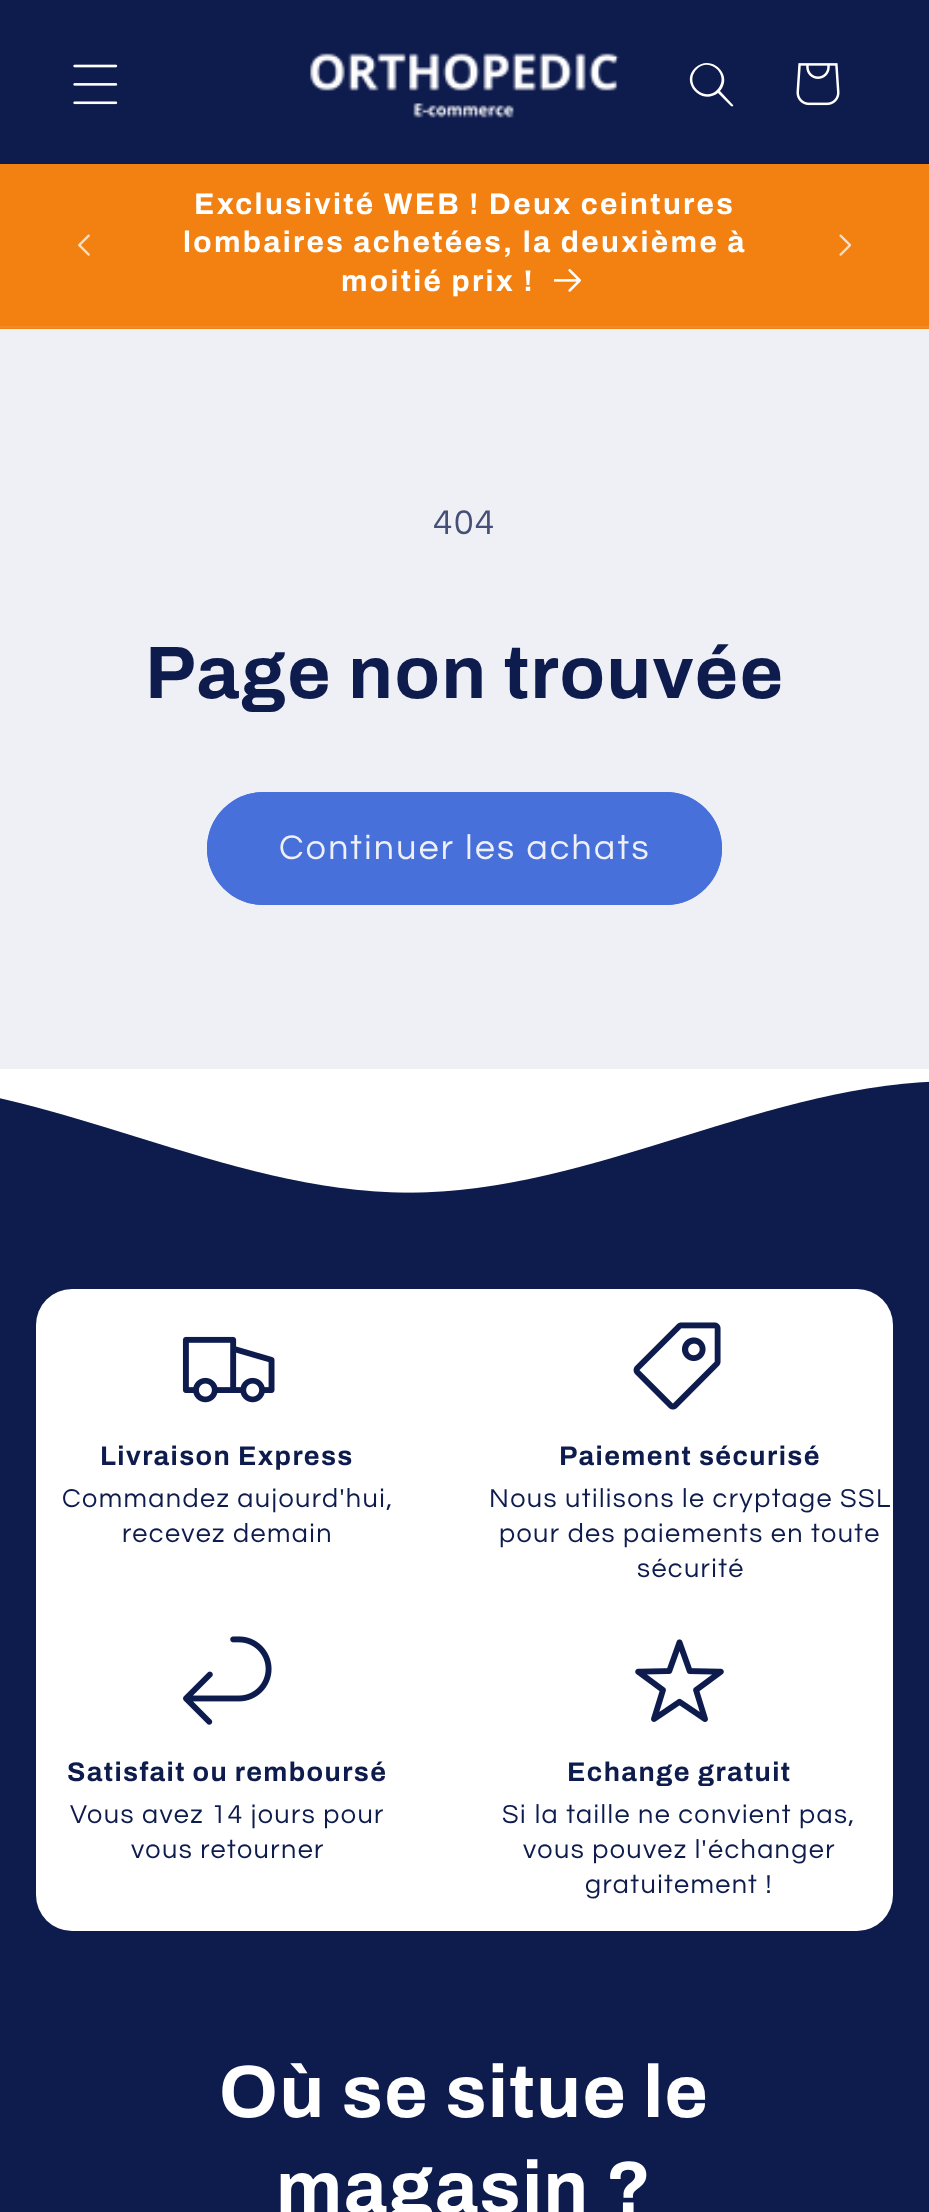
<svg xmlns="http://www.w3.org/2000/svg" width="929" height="2212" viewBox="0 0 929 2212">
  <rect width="100%" height="100%" fill="#eff0f5"/>
  <path d="M0 0h929v164H0z" fill="#0e1b4d"/>
  <image x="73" y="64" width="45" height="41" href="img/1.png"/>
  <image x="310" y="53" width="310" height="65" href="img/2.png"/>
  <path d="M717 90C704 103 683 83 697 69C710 56 731 76 717 90M718 93C701 106 680 82 695 68C711 53 734 75 720 91L733 105C734 106 732 107 731 106Z" fill="#fff" fill-rule="evenodd"/>
  <image x="796" y="63" width="44" height="43" href="img/3.png"/>
  <path d="M0 164h929v165H0z" fill="#f28112"/>
  <path d="M0 326h929v2H0z" fill="#f38b25"/>
  <image x="78" y="234" width="12" height="22" href="img/4.png"/>
  <image x="554" y="269" width="27" height="23" href="img/5.png"/>
  <image x="839" y="234" width="13" height="22" href="img/6.png"/>
  <rect x="207" y="792" width="515" height="113" rx="56.5" fill="#4770db"/>
  <rect x="208" y="793" width="513" height="111" rx="55.5" fill="none" stroke="#4770db" stroke-width="2"/>
  <path d="M0 1069h929v124H0z" fill="#fff"/>
  <image x="0" y="1081" width="929" height="161" href="img/7.png"/>
  <path d="M0 1242h929v970H0z" fill="#0e1b4d"/>
  <rect x="36" y="1289" width="857" height="642" rx="36" fill="#fff"/>
  <image x="182" y="1336" width="93" height="67" href="img/8.png"/>
  <image x="633" y="1322" width="88" height="88" href="img/9.png"/>
  <image x="183" y="1636" width="89" height="89" href="img/10.png"/>
  <image x="635" y="1639" width="89" height="83" href="img/11.png"/>
  <g font-family="Archivo" font-size="29.75" font-weight="bold" letter-spacing="2.35" fill="#fff">
    <text x="194" y="214">Exclusivité WEB ! Deux ceintures</text>
    <text x="183" y="252">lombaires achetées, la deuxième à</text>
    <text x="341" y="291">moitié prix !</text>
  </g>
  <text x="433" y="534" font-family="Questrial" font-size="35.5" letter-spacing="1.4" fill="#465077">404</text>
  <text x="145" y="698" font-family="Archivo" font-size="74.25" font-weight="bold" letter-spacing="1.5" fill="#0e1b4d">Page non trouvée</text>
  <text x="279" y="859" font-family="Questrial" font-size="35.5" letter-spacing="2.35" fill="#eff0f5">Continuer les achats</text>
  <text x="100" y="1465" font-family="Archivo" font-size="27" font-weight="bold" letter-spacing="1.4" fill="#0e1b4d">Livraison Express</text>
  <g font-family="Questrial" font-size="27" letter-spacing="1.4" fill="#0e1b4d">
    <text x="62" y="1507">Commandez aujourd'hui,</text>
    <text x="122" y="1542">recevez demain</text>
  </g>
  <text x="559" y="1465" font-family="Archivo" font-size="27" font-weight="bold" letter-spacing="1.4" fill="#0e1b4d">Paiement sécurisé</text>
  <g font-family="Questrial" font-size="27" letter-spacing="1.4" fill="#0e1b4d">
    <text x="489" y="1507">Nous utilisons le cryptage SSL</text>
    <text x="499" y="1542">pour des paiements en toute</text>
    <text x="637" y="1577">sécurité</text>
  </g>
  <text x="67" y="1781" font-family="Archivo" font-size="27" font-weight="bold" letter-spacing="1.4" fill="#0e1b4d">Satisfait ou remboursé</text>
  <g font-family="Questrial" font-size="27" letter-spacing="1.4" fill="#0e1b4d">
    <text x="70" y="1823">Vous avez 14 jours pour</text>
    <text x="131" y="1858">vous retourner</text>
  </g>
  <text x="567" y="1781" font-family="Archivo" font-size="27" font-weight="bold" letter-spacing="1.4" fill="#0e1b4d">Echange gratuit</text>
  <g font-family="Questrial" font-size="27" letter-spacing="1.4" fill="#0e1b4d">
    <text x="502" y="1823">Si la taille ne convient pas,</text>
    <text x="523" y="1858">vous pouvez l'échanger</text>
    <text x="585" y="1893">gratuitement !</text>
  </g>
  <g font-family="Archivo" font-size="74.25" font-weight="bold" letter-spacing="1.5" fill="#fff">
    <text x="219" y="2117">Où se situe le</text>
    <text x="276" y="2213">magasin ?</text>
  </g>
</svg>
